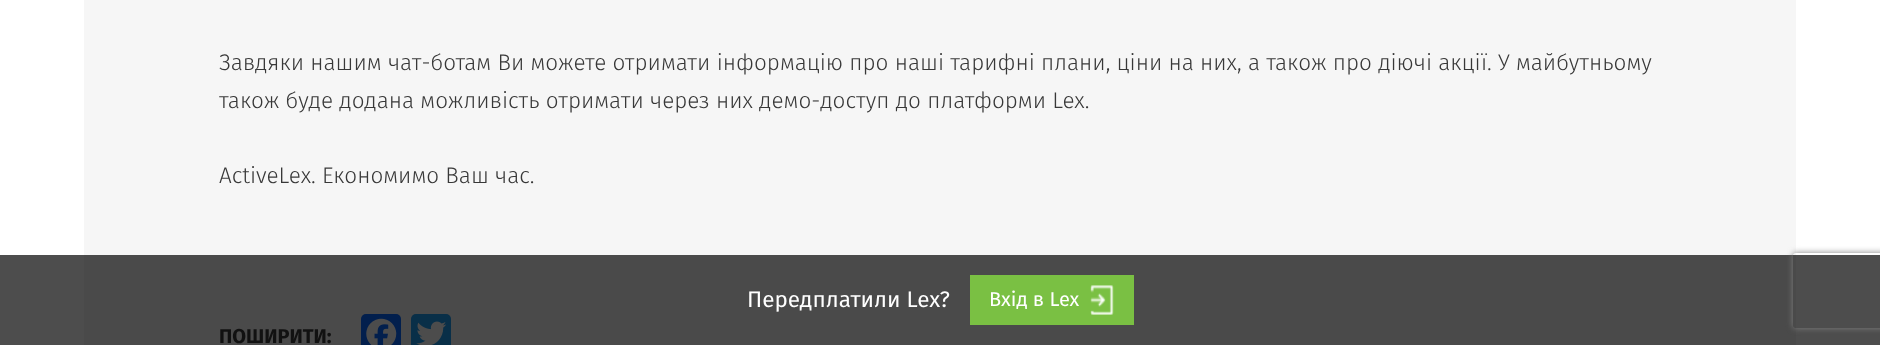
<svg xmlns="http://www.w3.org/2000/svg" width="1880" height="345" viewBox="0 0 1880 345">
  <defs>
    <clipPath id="clip1"><path d="M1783 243H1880V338H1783ZM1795.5 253H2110.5C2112 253 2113 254 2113 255.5V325.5C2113 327 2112 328 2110.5 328H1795.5C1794 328 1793 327 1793 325.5V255.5C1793 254 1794 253 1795.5 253Z" clip-rule="evenodd"/></clipPath>
  </defs>
  <rect width="100%" height="100%" fill="#fff"/>
  <path d="M0 255h1880v90H0z" fill="#4d4d4d"/>
  <path d="M84 0h1712v255H84z" fill="#f6f6f6"/>
  <path d="M84 255h1712v90H84z" fill="#4a4a4a"/>
  <rect x="361" y="314" width="40" height="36" rx="5" fill="#021f4d"/>
  <image x="366" y="318" width="31" height="27" href="img/1.png"/>
  <rect x="411" y="314" width="40" height="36" rx="5" fill="#092f48"/>
  <image x="416" y="321" width="31" height="24" href="img/2.png"/>
  <g clip-path="url(#clip1)">
    <rect x="1793" y="253" width="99" height="75" rx="2.5" fill="#808080" filter="blur(3px)"/>
  </g>
  <path d="M970 275h164v50H970z" fill="#7ac043"/>
  <image x="1090" y="285" width="24" height="30" href="img/3.png"/>
  <g font-family="Fira Sans" font-size="22.5" font-weight="300" fill="#383838">
    <text x="219" y="70">Завдяки нашим чат-ботам Ви можете отримати інформацію про наші тарифні плани, ціни на них, а також про діючі акції. У майбутньому</text>
    <text x="219" y="108">також буде додана можливість отримати через них демо-доступ до платформи Lex.</text>
    <text x="219" y="183">ActiveLex. Економимо Ваш час.</text>
  </g>
  <text x="219" y="343" font-family="Fira Sans" font-size="20" font-weight="bold" fill="#111">ПОШИРИТИ:</text>
  <text x="747" y="307" font-family="Fira Sans" font-size="22.5" fill="#fff">Передплатили Lex?</text>
  <text x="989" y="306" font-family="Fira Sans" font-size="20" fill="#fff">Вхід в Lex</text>
</svg>
